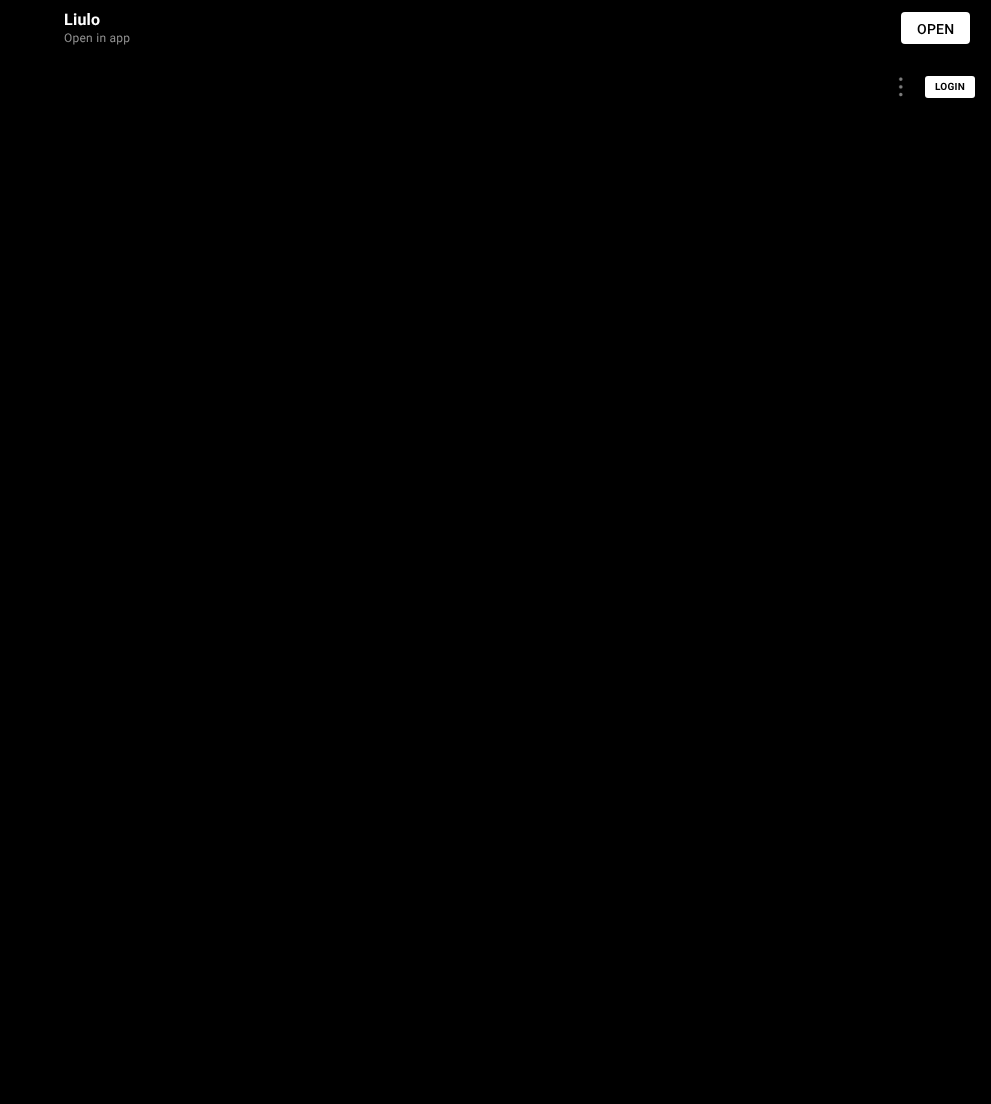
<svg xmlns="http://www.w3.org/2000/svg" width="991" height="1104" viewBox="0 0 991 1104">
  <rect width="100%" height="100%" fill="#000"/>
  <rect x="901" y="12" width="69" height="32" rx="4" fill="#fff"/>
  <image x="898" y="77" width="5" height="20" href="img/1.png"/>
  <rect x="925" y="76" width="50" height="22" rx="3" fill="#fff"/>
  <text x="64" y="25" font-family="Roboto" font-size="16" font-weight="bold" letter-spacing="0.25" fill="#fff">Liulo</text>
  <text x="64" y="42" font-family="Roboto" font-size="12" letter-spacing="0.25" fill="#909090">Open in app</text>
  <text x="917" y="34" font-family="Roboto" font-size="14" font-weight="500" letter-spacing="0.25" fill="#000">OPEN</text>
  <text x="935" y="90" font-family="Roboto" font-size="10" font-weight="bold" letter-spacing="0.25" fill="#000">LOGIN</text>
</svg>
